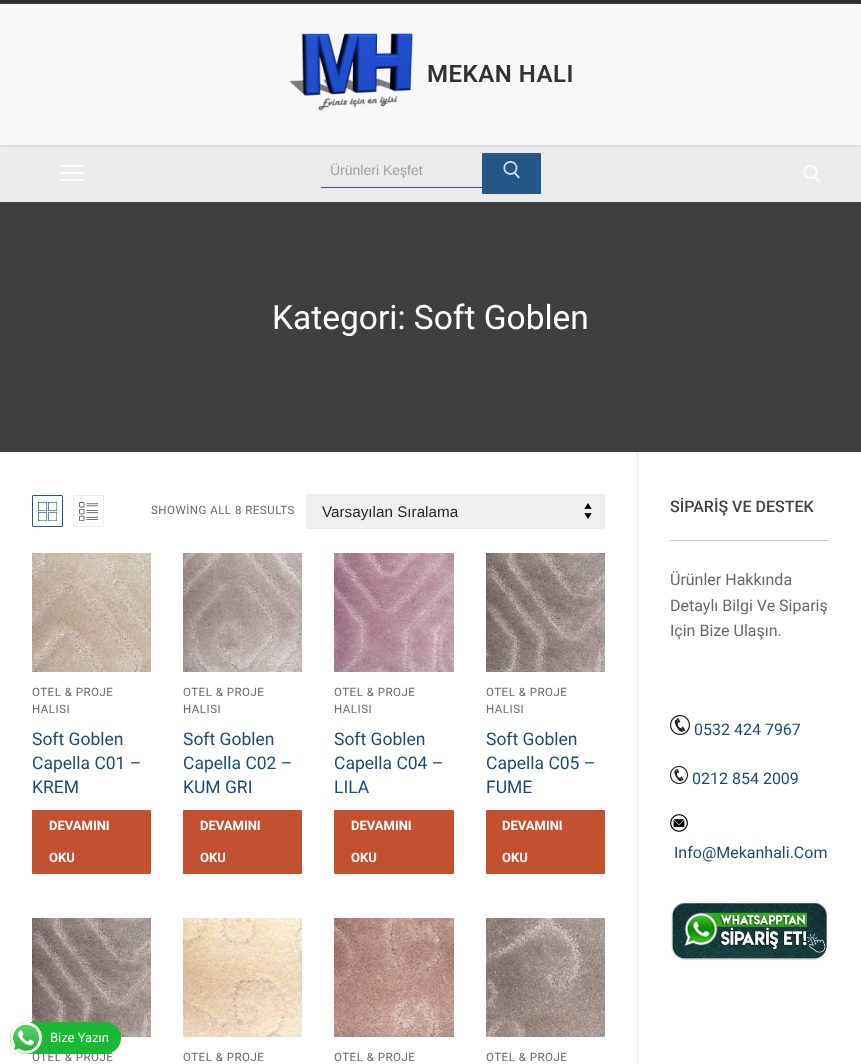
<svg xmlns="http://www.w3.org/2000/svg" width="861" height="1064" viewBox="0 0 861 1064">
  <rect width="100%" height="100%" fill="#fff"/>
  <path d="M0 0h861v4H0z" fill="#2d2d2d"/>
  <path d="M0 5h861v141H0z" fill="#e1e5ea" filter="blur(1px)"/>
  <path d="M0 4h861v141H0z" fill="#f8f8f8"/>
  <image x="289" y="33" width="124" height="78" href="img/1.png"/>
  <path d="M0 145h861v57H0z" fill="#04040a14"/>
  <path d="M61 172h22v2H61z" fill="#fbfbfb"/>
  <path d="M61 165h22v2H61z" fill="#fbfbfb"/>
  <path d="M61 179h22v2H61z" fill="#fbfbfb"/>
  <path d="M321 187h161v1H321z" fill="#3f528e"/>
  <rect x="482" y="153" width="59" height="41" rx="1" fill="#235787"/>
  <image x="503" y="161" width="17" height="18" href="img/2.png"/>
  <image x="803" y="165" width="17" height="18" href="img/3.png"/>
  <path d="M0 202h861v250H0z" fill="#3f3f3f"/>
  <path d="M637 452h1v612H637z" fill="#eaecee"/>
  <rect x="32.5" y="495.5" width="30" height="31" rx="0.5" fill="none" stroke="#235787"/>
  <image x="38" y="502" width="19" height="19" href="img/4.png"/>
  <rect x="73.5" y="495.5" width="30" height="31" rx="0.5" fill="none" stroke="#eaecee"/>
  <image x="79" y="502" width="19" height="19" href="img/5.png"/>
  <path d="M307 495h297v33H307z" fill="#efefef"/>
  <image x="584" y="503" width="8" height="16" href="img/6.png"/>
  <path d="M306.5 494.5h298v34H306.5z" fill="none" stroke="#eaecee"/>
  <image x="32" y="553" width="119" height="119" href="img/7.png"/>
  <rect x="32" y="810" width="119" height="64" rx="1" fill="#c3512f"/>
  <image x="183" y="553" width="119" height="119" href="img/8.png"/>
  <rect x="183" y="810" width="119" height="64" rx="1" fill="#c3512f"/>
  <image x="334" y="553" width="120" height="119" href="img/9.png"/>
  <rect x="334" y="810" width="120" height="64" rx="1" fill="#c3512f"/>
  <image x="486" y="553" width="119" height="119" href="img/10.png"/>
  <rect x="486" y="810" width="119" height="64" rx="1" fill="#c3512f"/>
  <image x="32" y="918" width="119" height="119" href="img/11.png"/>
  <image x="183" y="918" width="119" height="119" href="img/12.png"/>
  <image x="334" y="918" width="120" height="119" href="img/13.png"/>
  <image x="486" y="918" width="119" height="119" href="img/14.png"/>
  <path d="M670 540h159v1H670z" fill="#ccc"/>
  <image x="670" y="715" width="20" height="20" href="img/15.png"/>
  <image x="670" y="766" width="18" height="18" href="img/16.png"/>
  <image x="670" y="814" width="18" height="18" href="img/17.png"/>
  <image x="670" y="902" width="158" height="59" href="img/18.png"/>
  <text x="427" y="82" font-family="Roboto" font-size="24" font-weight="600" letter-spacing="0.5" fill="#323232">MEKAN HALI</text>
  <text x="330" y="175" font-family="Liberation Sans" font-size="14" fill="#a3a3a3">Ürünleri Keşfet</text>
  <text x="272" y="329" font-family="Roboto" font-size="33.5" fill="#fff">Kategori: Soft Goblen</text>
  <text x="151" y="514" font-family="Roboto" font-size="11.5" letter-spacing="0.5" fill="#686868">SHOWİNG ALL 8 RESULTS</text>
  <text x="322" y="517" font-family="Liberation Sans" font-size="15.25" fill="#282828">Varsayılan Sıralama</text>
  <g font-family="Roboto" font-size="11.5" letter-spacing="0.5" fill="#686868">
    <text x="32" y="696">OTEL &amp; PROJE</text>
    <text x="32" y="713">HALISI</text>
  </g>
  <g font-family="Roboto" font-size="17.5" fill="#1e4b75">
    <text x="32" y="745">Soft Goblen</text>
    <text x="32" y="769">Capella C01 –</text>
    <text x="32" y="793">KREM</text>
  </g>
  <g font-family="Roboto" font-size="13" font-weight="bold" fill="#fff">
    <text x="49" y="830">DEVAMINI</text>
    <text x="49" y="862">OKU</text>
  </g>
  <g font-family="Roboto" font-size="11.5" letter-spacing="0.5" fill="#686868">
    <text x="183" y="696">OTEL &amp; PROJE</text>
    <text x="183" y="713">HALISI</text>
  </g>
  <g font-family="Roboto" font-size="17.5" fill="#1e4b75">
    <text x="183" y="745">Soft Goblen</text>
    <text x="183" y="769">Capella C02 –</text>
    <text x="183" y="793">KUM GRI</text>
  </g>
  <g font-family="Roboto" font-size="13" font-weight="bold" fill="#fff">
    <text x="200" y="830">DEVAMINI</text>
    <text x="200" y="862">OKU</text>
  </g>
  <g font-family="Roboto" font-size="11.5" letter-spacing="0.5" fill="#686868">
    <text x="334" y="696">OTEL &amp; PROJE</text>
    <text x="334" y="713">HALISI</text>
  </g>
  <g font-family="Roboto" font-size="17.5" fill="#1e4b75">
    <text x="334" y="745">Soft Goblen</text>
    <text x="334" y="769">Capella C04 –</text>
    <text x="334" y="793">LILA</text>
  </g>
  <g font-family="Roboto" font-size="13" font-weight="bold" fill="#fff">
    <text x="351" y="830">DEVAMINI</text>
    <text x="351" y="862">OKU</text>
  </g>
  <g font-family="Roboto" font-size="11.5" letter-spacing="0.5" fill="#686868">
    <text x="486" y="696">OTEL &amp; PROJE</text>
    <text x="486" y="713">HALISI</text>
  </g>
  <g font-family="Roboto" font-size="17.5" fill="#1e4b75">
    <text x="486" y="745">Soft Goblen</text>
    <text x="486" y="769">Capella C05 –</text>
    <text x="486" y="793">FUME</text>
  </g>
  <g font-family="Roboto" font-size="13" font-weight="bold" fill="#fff">
    <text x="502" y="830">DEVAMINI</text>
    <text x="502" y="862">OKU</text>
  </g>
  <g font-family="Roboto" font-size="11.5" letter-spacing="0.5" fill="#686868">
    <text x="32" y="1061">OTEL &amp; PROJE</text>
    <text x="183" y="1061">OTEL &amp; PROJE</text>
    <text x="334" y="1061">OTEL &amp; PROJE</text>
    <text x="486" y="1061">OTEL &amp; PROJE</text>
  </g>
  <text x="670" y="512" font-family="Roboto" font-size="16" font-weight="500" fill="#444">SİPARİŞ VE DESTEK</text>
  <g font-family="Roboto" font-size="16" fill="#686868">
    <text x="670" y="585">Ürünler Hakkında</text>
    <text x="670" y="611">Detaylı Bilgi Ve Sipariş</text>
    <text x="670" y="636">Için Bize Ulaşın.</text>
  </g>
  <g font-family="Roboto" font-size="16" fill="#1e4b75">
    <text x="694" y="735">0532 424 7967</text>
    <text x="692" y="784">0212 854 2009</text>
    <text x="674" y="858">Info@Mekanhali.Com</text>
  </g>
  <rect x="10" y="1022" width="111" height="32" rx="16" fill="#18ba33"/>
  <image x="10" y="1022" width="32" height="32" href="img/19.png"/>
  <text x="50" y="1042" font-family="Roboto" font-size="13" fill="#fff9f9">Bize Yazın</text>
</svg>
